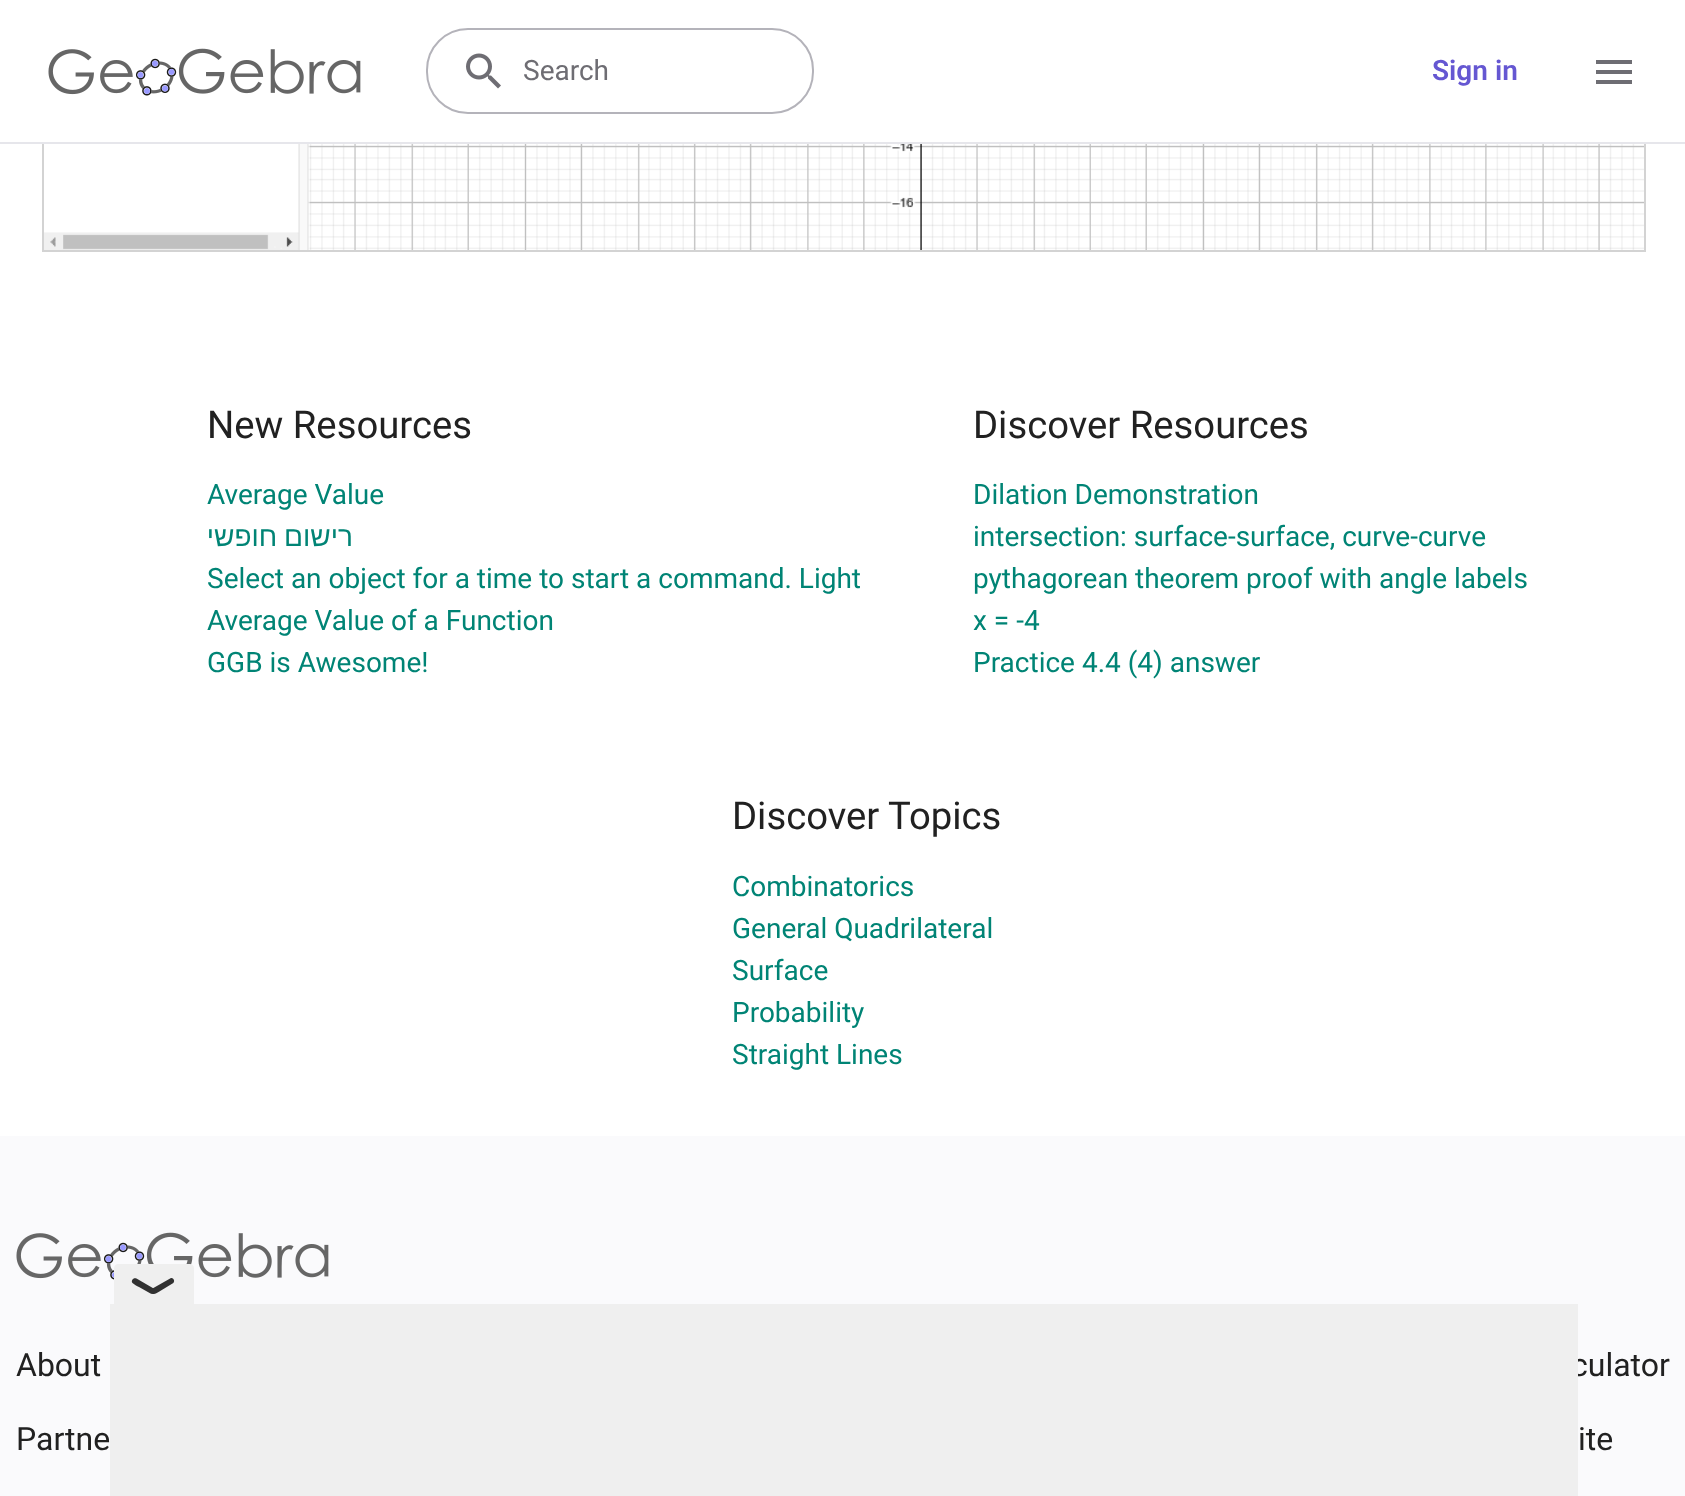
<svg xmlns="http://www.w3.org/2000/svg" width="1685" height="1496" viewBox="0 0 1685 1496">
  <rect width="100%" height="100%" fill="#fff"/>
  <image x="44" y="144" width="1600" height="106" href="img/4.png"/>
  <path d="M43 -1h1602v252H43z" fill="none" stroke="#d3d3d3" stroke-width="2"/>
  <path d="M42 0h1604v142H42z" fill="#fff"/>
  <path d="M0 142h1685v2H0z" fill="#e6e6eb"/>
  <image x="48" y="48" width="313" height="48" href="img/1.png"/>
  <rect x="427" y="29" width="386" height="84" rx="41" fill="none" stroke="#b4b3ba" stroke-width="2"/>
  <image x="466" y="53" width="35" height="36" href="img/2.png"/>
  <image x="1596" y="60" width="36" height="24" href="img/3.png"/>
  <path d="M0 1136h1685v360H0z" fill="#fafafc"/>
  <image x="16" y="1232" width="313" height="48" href="img/5.png"/>
  <path d="M118 1264H190C192 1264 194 1266 194 1268V1304H114V1268C114 1266 116 1264 118 1264Z" fill="#efefef"/>
  <path d="M136.5 1278.5L154.5 1289C156.5 1292 153.5 1295 150.5 1293.5L139 1287C137 1286 134 1284.5 132.5 1283C130.5 1280.5 133.5 1277 136.5 1278.5Z" fill="#313131"/>
  <path d="M152.5 1288.5L171 1278C174 1277.5 175.5 1282 172.5 1283.5L161 1290.5C159 1291.5 156.5 1293.5 154 1294C151 1294.5 149.5 1290 152.5 1288.5Z" fill="#313131"/>
  <text x="523" y="80" font-family="Roboto" font-size="28" fill="#6e6d73">Search</text>
  <text x="1432" y="80" font-family="Roboto" font-size="28" font-weight="600" fill="#6557d2">Sign in</text>
  <text x="207" y="438" font-family="Roboto" font-size="38.25" fill="#212121">New Resources</text>
  <text x="207" y="504" font-family="Roboto" font-size="28" fill="#008475">Average Value</text>
  <text x="353" y="546" word-spacing="-1" font-family="Liberation Sans" font-size="28" direction="rtl" fill="#008475">רישום חופשי</text>
  <g font-family="Roboto" font-size="28" fill="#008475">
    <text x="207" y="588">Select an object for a time to start a command. Light</text>
    <text x="207" y="630">Average Value of a Function</text>
    <text x="207" y="672">GGB is Awesome!</text>
  </g>
  <text x="973" y="438" font-family="Roboto" font-size="38.25" fill="#212121">Discover Resources</text>
  <g font-family="Roboto" font-size="28" fill="#008475">
    <text x="973" y="504">Dilation Demonstration</text>
    <text x="973" y="546">intersection: surface-surface, curve-curve</text>
    <text x="973" y="588">pythagorean theorem proof with angle labels</text>
    <text x="973" y="630">x = -4</text>
    <text x="973" y="672">Practice 4.4 (4) answer</text>
  </g>
  <text x="732" y="829" font-family="Roboto" font-size="38.25" fill="#212121">Discover Topics</text>
  <g font-family="Roboto" font-size="28" fill="#008475">
    <text x="732" y="896">Combinatorics</text>
    <text x="732" y="938">General Quadrilateral</text>
    <text x="732" y="980">Surface</text>
    <text x="732" y="1022">Probability</text>
    <text x="732" y="1064">Straight Lines</text>
  </g>
  <g font-family="Roboto" font-size="32" fill="#212121">
    <text x="16" y="1376">About</text>
    <text x="16" y="1450">Partne</text>
    <text x="1571" y="1376">culator</text>
    <text x="1578" y="1450">ite</text>
  </g>
  <path d="M110 1304h1468v192H110z" fill="#efefef"/>
</svg>
